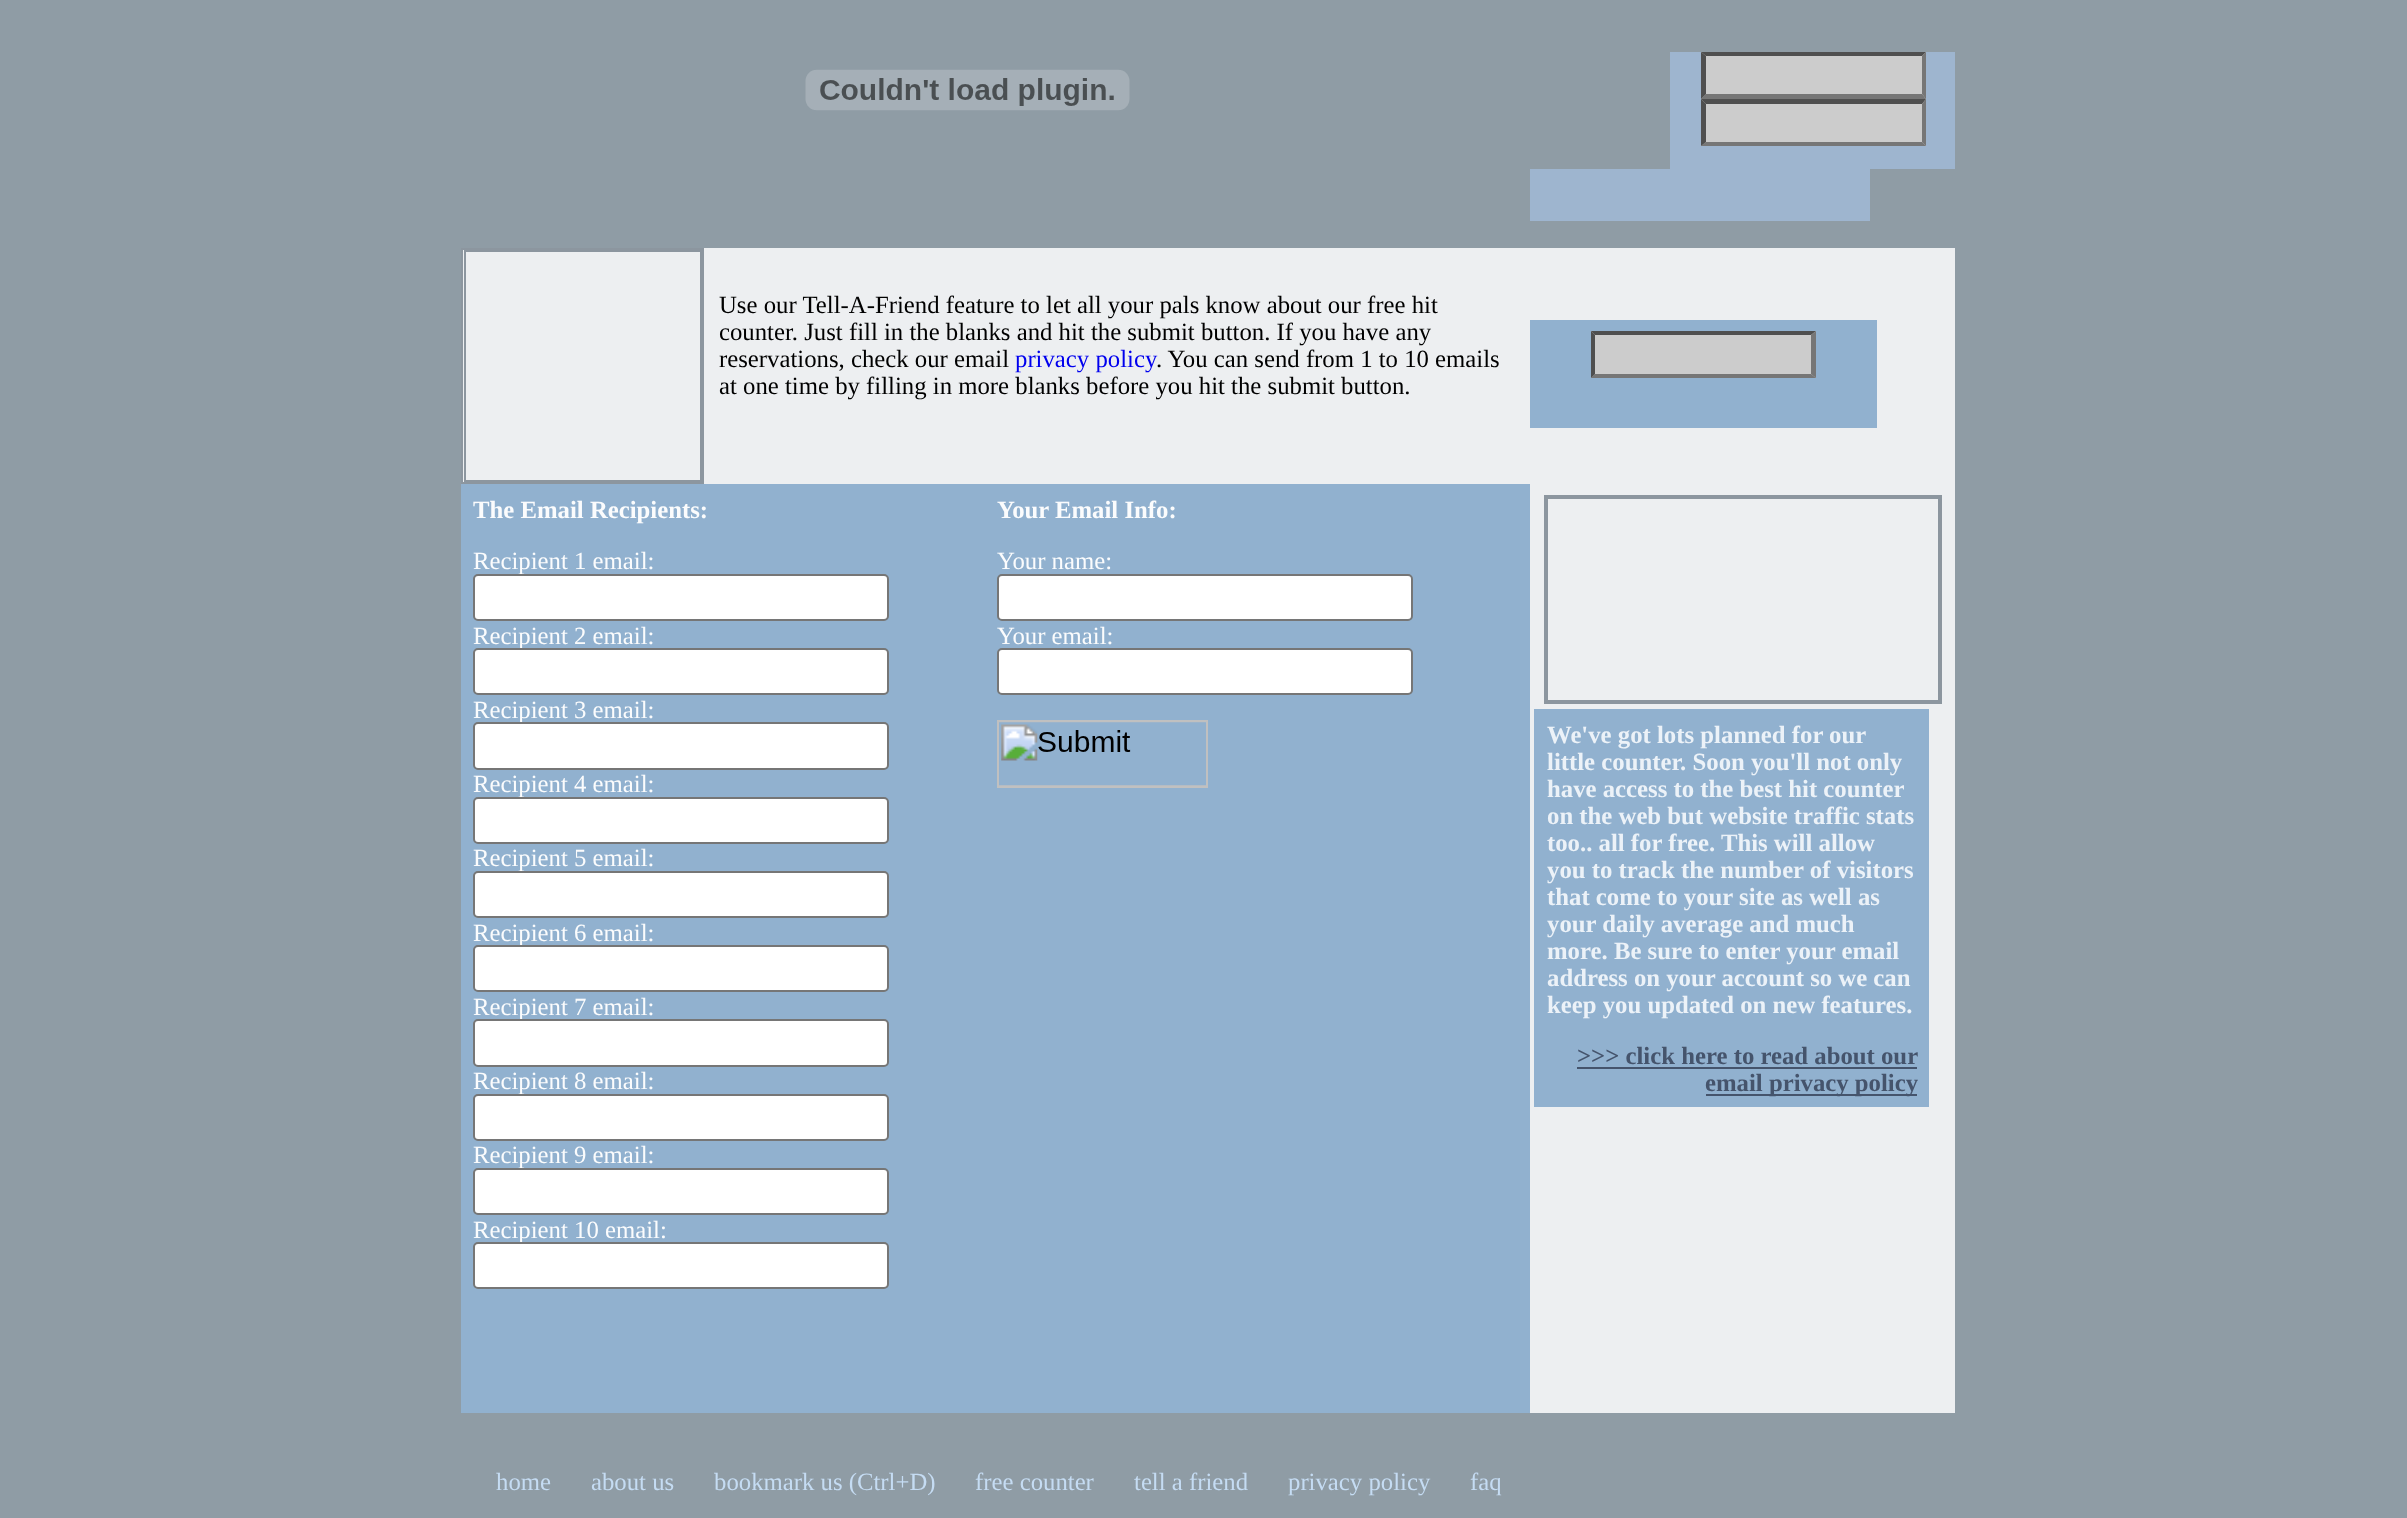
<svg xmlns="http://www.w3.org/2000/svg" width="2407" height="1518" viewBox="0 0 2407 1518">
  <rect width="100%" height="100%" fill="#8f9ca5"/>
  <image x="805" y="69" width="325" height="42" href="img/1.png"/>
  <path d="M1670 52h285v117H1670z" fill="#9eb5cf"/>
  <path d="M1701 52h225v94H1701z" fill="#ccc"/>
  <path d="M1701 52H1926L1922 56H1706Z" fill="#4f4f4f"/>
  <path d="M1926 52V99L1922 94V56Z" fill="#767676"/>
  <path d="M1926 99H1701L1706 94H1922Z" fill="#767676"/>
  <path d="M1701 99V52L1706 56V94Z" fill="#4f4f4f"/>
  <path d="M1701 99H1926L1922 104H1706Z" fill="#4f4f4f"/>
  <path d="M1926 99V146L1922 142V104Z" fill="#767676"/>
  <path d="M1926 146H1701L1706 142H1922Z" fill="#767676"/>
  <path d="M1701 146V99L1706 104V142Z" fill="#4f4f4f"/>
  <path d="M1530 169h340v52H1530z" fill="#9eb5cf"/>
  <path d="M463 248h1067v236H463z" fill="#edeff1"/>
  <path d="M462 249h241v234H462z" fill="none" stroke="#8c969f" stroke-width="2"/>
  <path d="M465 251h236v230H465z" fill="none" stroke="#8c969f" stroke-width="2"/>
  <path d="M461 484h1069v929H461z" fill="#91b1cf"/>
  <rect x="998" y="575" width="414" height="45" rx="4" fill="#fff" stroke="#767676" stroke-width="2"/>
  <rect x="998" y="649" width="414" height="45" rx="4" fill="#fff" stroke="#767676" stroke-width="2"/>
  <image x="999" y="722" width="207" height="64" href="img/2.png"/>
  <path d="M998 721h209v66H998z" fill="none" stroke="#c0c0c0" stroke-width="2"/>
  <path d="M1530 248h425v1165H1530z" fill="#edeff1"/>
  <path d="M1530 320h347v108H1530z" fill="#91b1cf"/>
  <path d="M1591 331h225v47H1591z" fill="#ccc"/>
  <path d="M1591 331H1816L1811 335H1595Z" fill="#4f4f4f"/>
  <path d="M1816 331V378L1811 374V335Z" fill="#767676"/>
  <path d="M1816 378H1591L1595 374H1811Z" fill="#767676"/>
  <path d="M1591 378V331L1595 335V374Z" fill="#4f4f4f"/>
  <path d="M1545 496h396v207H1545z" fill="none" stroke="#8c969f" stroke-width="2"/>
  <path d="M1547 498h392v203H1547z" fill="none" stroke="#8c969f" stroke-width="2"/>
  <path d="M1534 709h395v398H1534z" fill="#91b1cf"/>
  <path d="M1577 1067h340v2H1577z" fill="#45546c"/>
  <path d="M1706 1094h211v2H1706z" fill="#45546c"/>
  <g font-family="Liberation Serif" font-size="24.75" fill="#000">
    <text x="719" y="313">Use our Tell-A-Friend feature to let all your pals know about our free hit</text>
    <text x="719" y="340">counter. Just fill in the blanks and hit the submit button. If you have any</text>
    <text x="719" y="367">reservations, check our email</text>
  </g>
  <text x="1015" y="367" font-family="Liberation Serif" font-size="24.75" fill="#00e">privacy policy</text>
  <g font-family="Liberation Serif" font-size="24.75" fill="#000">
    <text x="1156" y="367">. You can send from 1 to 10 emails</text>
    <text x="719" y="394">at one time by filling in more blanks before you hit the submit button.</text>
  </g>
  <text x="473" y="518" font-family="Liberation Serif" font-size="24.75" font-weight="bold" fill="#fbfcfd">The Email Recipients:</text>
  <text x="473" y="569" font-family="Liberation Serif" font-size="24.75" fill="#fbfcfd">Recipient 1 email:</text>
  <rect x="474" y="575" width="414" height="45" rx="4" fill="#fff" stroke="#767676" stroke-width="2"/>
  <text x="473" y="644" font-family="Liberation Serif" font-size="24.75" fill="#fbfcfd">Recipient 2 email:</text>
  <rect x="474" y="649" width="414" height="45" rx="4" fill="#fff" stroke="#767676" stroke-width="2"/>
  <text x="473" y="718" font-family="Liberation Serif" font-size="24.75" fill="#fbfcfd">Recipient 3 email:</text>
  <rect x="474" y="723" width="414" height="46" rx="4" fill="#fff" stroke="#767676" stroke-width="2"/>
  <text x="473" y="792" font-family="Liberation Serif" font-size="24.75" fill="#fbfcfd">Recipient 4 email:</text>
  <rect x="474" y="798" width="414" height="45" rx="4" fill="#fff" stroke="#767676" stroke-width="2"/>
  <text x="473" y="866" font-family="Liberation Serif" font-size="24.75" fill="#fbfcfd">Recipient 5 email:</text>
  <rect x="474" y="872" width="414" height="45" rx="4" fill="#fff" stroke="#767676" stroke-width="2"/>
  <text x="473" y="941" font-family="Liberation Serif" font-size="24.75" fill="#fbfcfd">Recipient 6 email:</text>
  <rect x="474" y="946" width="414" height="45" rx="4" fill="#fff" stroke="#767676" stroke-width="2"/>
  <text x="473" y="1015" font-family="Liberation Serif" font-size="24.75" fill="#fbfcfd">Recipient 7 email:</text>
  <rect x="474" y="1020" width="414" height="46" rx="4" fill="#fff" stroke="#767676" stroke-width="2"/>
  <text x="473" y="1089" font-family="Liberation Serif" font-size="24.75" fill="#fbfcfd">Recipient 8 email:</text>
  <rect x="474" y="1095" width="414" height="45" rx="4" fill="#fff" stroke="#767676" stroke-width="2"/>
  <text x="473" y="1163" font-family="Liberation Serif" font-size="24.75" fill="#fbfcfd">Recipient 9 email:</text>
  <rect x="474" y="1169" width="414" height="45" rx="4" fill="#fff" stroke="#767676" stroke-width="2"/>
  <text x="473" y="1238" font-family="Liberation Serif" font-size="24.75" fill="#fbfcfd">Recipient 10 email:</text>
  <rect x="474" y="1243" width="414" height="45" rx="4" fill="#fff" stroke="#767676" stroke-width="2"/>
  <text x="997" y="518" font-family="Liberation Serif" font-size="24.75" font-weight="bold" fill="#fbfcfd">Your Email Info:</text>
  <g font-family="Liberation Serif" font-size="24.75" fill="#fbfcfd">
    <text x="997" y="569">Your name:</text>
    <text x="997" y="644">Your email:</text>
  </g>
  <g font-family="Liberation Serif" font-size="24.75" font-weight="bold" fill="#ecf2f8">
    <text x="1547" y="743">We've got lots planned for our</text>
    <text x="1547" y="770">little counter. Soon you'll not only</text>
    <text x="1547" y="797">have access to the best hit counter</text>
    <text x="1547" y="824">on the web but website traffic stats</text>
    <text x="1547" y="851">too.. all for free. This will allow</text>
    <text x="1547" y="878">you to track the number of visitors</text>
    <text x="1547" y="905">that come to your site as well as</text>
    <text x="1547" y="932">your daily average and much</text>
    <text x="1547" y="959">more. Be sure to enter your email</text>
    <text x="1547" y="986">address on your account so we can</text>
    <text x="1547" y="1013">keep you updated on new features.</text>
  </g>
  <g font-family="Liberation Serif" font-size="24.75" font-weight="bold" fill="#45546c">
    <text x="1577" y="1064">&gt;&gt;&gt; click here to read about our</text>
    <text x="1705" y="1091">email privacy policy</text>
  </g>
  <g font-family="Liberation Serif" font-size="24.75" fill="#c5dcf3">
    <text x="496" y="1490">home</text>
    <text x="591" y="1490">about us</text>
    <text x="714" y="1490">bookmark us (Ctrl+D)</text>
    <text x="975" y="1490">free counter</text>
    <text x="1134" y="1490">tell a friend</text>
    <text x="1288" y="1490">privacy policy</text>
    <text x="1470" y="1490">faq</text>
  </g>
</svg>
